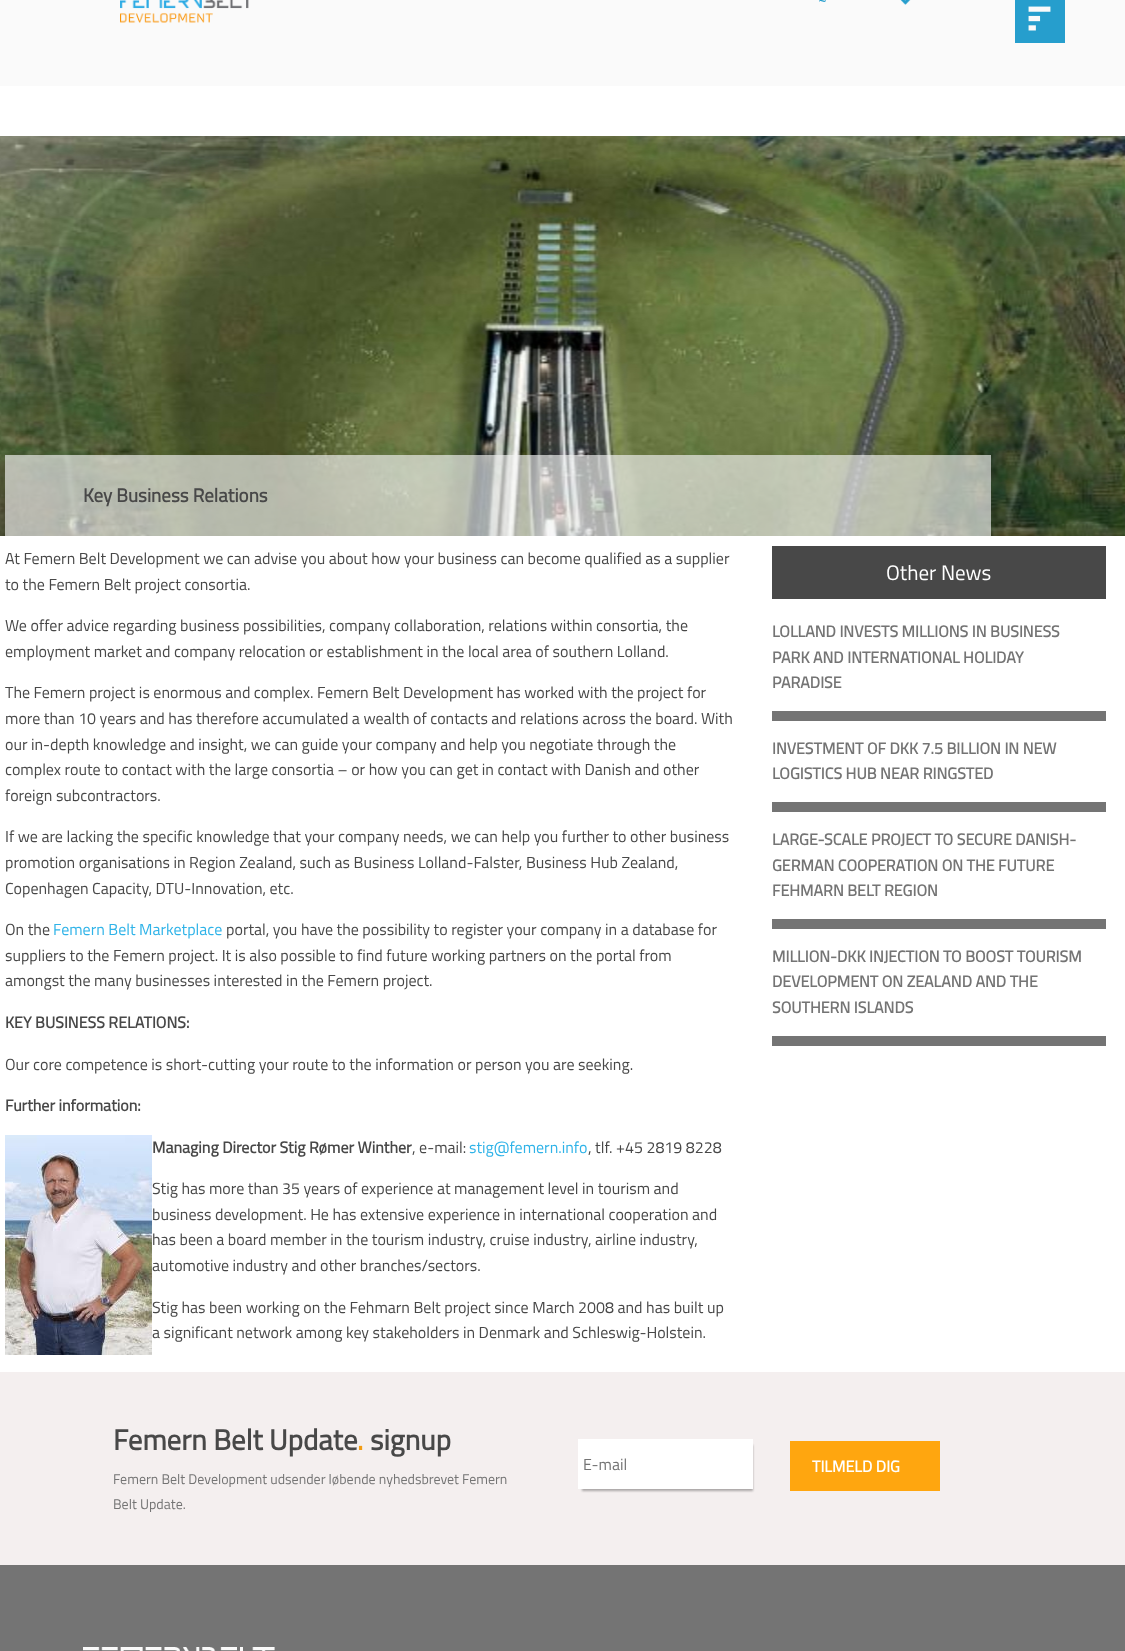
<svg xmlns="http://www.w3.org/2000/svg" width="1125" height="1651" viewBox="0 0 1125 1651">
  <rect width="100%" height="100%" fill="#fff"/>
  <path d="M0 0h1125v86H0z" fill="#fafafa"/>
  <image x="120" y="0" width="129" height="23" href="img/1.png"/>
  <image x="1015" y="0" width="50" height="43" href="img/2.png"/>
  <image x="900" y="0" width="11" height="5" href="img/3.png"/>
  <image x="0" y="136" width="1125" height="400" href="img/4.png"/>
  <path d="M5 455h986v81H5z" fill="#f5f5f5a6"/>
  <image x="5" y="1135" width="147" height="220" href="img/5.png"/>
  <path d="M772 546h334v53H772z" fill="#484848"/>
  <path d="M772 711h334v10H772z" fill="#747474"/>
  <path d="M772 802h334v10H772z" fill="#747474"/>
  <path d="M772 919h334v10H772z" fill="#747474"/>
  <path d="M772 1036h334v10H772z" fill="#747474"/>
  <path d="M0 1372h1125v193H0z" fill="#f4efef"/>
  <path d="M582 1445h171v46H582z" fill="#0000004d" filter="blur(1px)"/>
  <path d="M578 1439h175v50H578z" fill="#fff"/>
  <path d="M790 1441h150v50H790z" fill="#ffa60f"/>
  <path d="M0 1565h1125v86H0z" fill="#747474"/>
  <image x="83" y="1647" width="192" height="4" href="img/6.png"/>
  <text x="818" y="5" font-family="Titillium Web" font-size="16" fill="#269ecd">~</text>
  <text x="83" y="502" font-family="Titillium Web" font-size="19" font-weight="bold" fill="#484848">Key Business Relations</text>
  <g font-family="Titillium Web" font-size="16" fill="#484848">
    <text x="5" y="564">At Femern Belt Development we can advise you about how your business can become qualified as a supplier</text>
    <text x="5" y="590">to the Femern Belt project consortia.</text>
    <text x="5" y="631">We offer advice regarding business possibilities, company collaboration, relations within consortia, the</text>
    <text x="5" y="657">employment market and company relocation or establishment in the local area of southern Lolland.</text>
    <text x="5" y="698">The Femern project is enormous and complex. Femern Belt Development has worked with the project for</text>
    <text x="5" y="724">more than 10 years and has therefore accumulated a wealth of contacts and relations across the board. With</text>
    <text x="5" y="750">our in-depth knowledge and insight, we can guide your company and help you negotiate through the</text>
    <text x="5" y="775">complex route to contact with the large consortia – or how you can get in contact with Danish and other</text>
    <text x="5" y="801">foreign subcontractors.</text>
    <text x="5" y="842">If we are lacking the specific knowledge that your company needs, we can help you further to other business</text>
    <text x="5" y="868">promotion organisations in Region Zealand, such as Business Lolland-Falster, Business Hub Zealand,</text>
    <text x="5" y="894">Copenhagen Capacity, DTU-Innovation, etc.</text>
    <text x="5" y="935">On the</text>
  </g>
  <text x="53" y="935" font-family="Titillium Web" font-size="16" fill="#2fb3e8">Femern Belt Marketplace</text>
  <g font-family="Titillium Web" font-size="16" fill="#484848">
    <text x="226" y="935">portal, you have the possibility to register your company in a database for</text>
    <text x="5" y="961">suppliers to the Femern project. It is also possible to find future working partners on the portal from</text>
    <text x="5" y="986">amongst the many businesses interested in the Femern project.</text>
  </g>
  <text x="5" y="1028" font-family="Titillium Web" font-size="16" font-weight="bold" fill="#484848">KEY BUSINESS RELATIONS:</text>
  <text x="5" y="1070" font-family="Titillium Web" font-size="16" fill="#484848">Our core competence is short-cutting your route to the information or person you are seeking.</text>
  <g font-family="Titillium Web" font-size="16" font-weight="bold" fill="#484848">
    <text x="5" y="1111">Further information:</text>
    <text x="152" y="1153">Managing Director Stig Rømer Winther</text>
  </g>
  <text x="412" y="1153" font-family="Titillium Web" font-size="16" fill="#484848">, e-mail:</text>
  <text x="469" y="1153" font-family="Titillium Web" font-size="16" fill="#2fb3e8">stig@femern.info</text>
  <g font-family="Titillium Web" font-size="16" fill="#484848">
    <text x="588" y="1153">, tlf. +45 2819 8228</text>
    <text x="152" y="1194">Stig has more than 35 years of experience at management level in tourism and</text>
    <text x="152" y="1220">business development. He has extensive experience in international cooperation and</text>
    <text x="152" y="1245">has been a board member in the tourism industry, cruise industry, airline industry,</text>
    <text x="152" y="1271">automotive industry and other branches/sectors.</text>
    <text x="152" y="1313">Stig has been working on the Fehmarn Belt project since March 2008 and has built up</text>
    <text x="152" y="1338">a significant network among key stakeholders in Denmark and Schleswig-Holstein.</text>
  </g>
  <text x="886" y="580" font-family="Titillium Web" font-size="21" fill="#fff">Other News</text>
  <g font-family="Titillium Web" font-size="16" font-weight="bold" fill="#747474">
    <text x="772" y="637">LOLLAND INVESTS MILLIONS IN BUSINESS</text>
    <text x="772" y="663">PARK AND INTERNATIONAL HOLIDAY</text>
    <text x="772" y="688">PARADISE</text>
    <text x="772" y="754">INVESTMENT OF DKK 7.5 BILLION IN NEW</text>
    <text x="772" y="779">LOGISTICS HUB NEAR RINGSTED</text>
    <text x="772" y="845">LARGE-SCALE PROJECT TO SECURE DANISH-</text>
    <text x="772" y="871">GERMAN COOPERATION ON THE FUTURE</text>
    <text x="772" y="896">FEHMARN BELT REGION</text>
    <text x="772" y="962">MILLION-DKK INJECTION TO BOOST TOURISM</text>
    <text x="772" y="987">DEVELOPMENT ON ZEALAND AND THE</text>
    <text x="772" y="1013">SOUTHERN ISLANDS</text>
  </g>
  <text x="113" y="1450" font-family="Titillium Web" font-size="29" font-weight="bold" fill="#484848">Femern Belt Update</text>
  <text x="357" y="1450" font-family="Titillium Web" font-size="29" font-weight="bold" fill="#f39c12">.</text>
  <text x="370" y="1450" font-family="Titillium Web" font-size="29" font-weight="bold" fill="#484848">signup</text>
  <g font-family="Titillium Web" font-size="14" fill="#747474">
    <text x="113" y="1484">Femern Belt Development udsender løbende nyhedsbrevet Femern</text>
    <text x="113" y="1509">Belt Update.</text>
  </g>
  <text x="583" y="1470" font-family="Titillium Web" font-size="16" fill="#747474">E-mail</text>
  <text x="812" y="1472" font-family="Titillium Web" font-size="16" font-weight="bold" fill="#fff">TILMELD DIG</text>
</svg>
